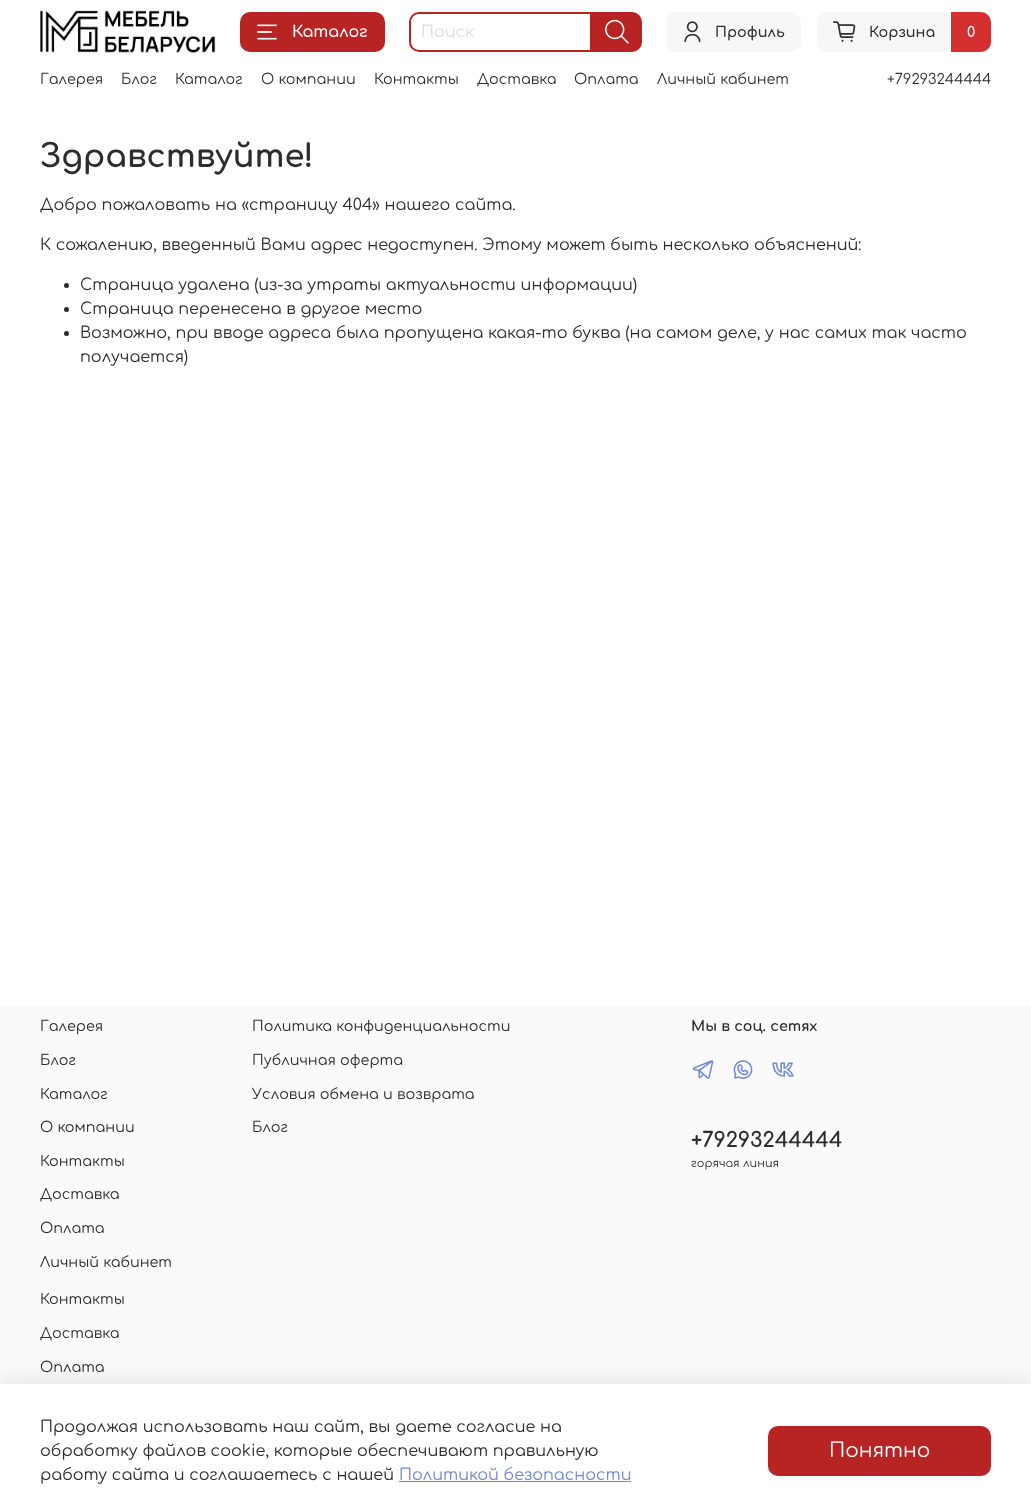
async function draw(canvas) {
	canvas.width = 1031;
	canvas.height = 1508;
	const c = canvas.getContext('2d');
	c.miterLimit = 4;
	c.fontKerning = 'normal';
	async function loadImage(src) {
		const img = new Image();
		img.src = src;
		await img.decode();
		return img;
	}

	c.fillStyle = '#fff';
	c.fillRect(0, 0, 1031, 1508);
	c.drawImage(await loadImage('img1.png'), 40, 10, 176, 43);
	c.fillStyle = '#b82323';
	c.beginPath();
	c.roundRect(240, 12, 145, 40, 10);
	c.fill();
	c.drawImage(await loadImage('img2.png'), 257, 24, 20, 16);
	c.font = '600 16px Comfortaa';
	c.fillStyle = '#fff';
	c.fillText('Каталог', 292, 37);
	c.beginPath();
	c.roundRect(410, 13, 181, 38, [9, 0, 0, 9]);
	c.strokeStyle = '#b82323';
	c.lineWidth = 2;
	c.stroke();
	c.font = '16px Comfortaa';
	c.fillStyle = '#ddd';
	c.fillText('Поиск', 421, 37);
	c.fillStyle = '#b82323';
	c.beginPath();
	c.roundRect(592, 12, 50, 40, [0, 10, 10, 0]);
	c.fill();
	c.drawImage(await loadImage('img3.png'), 605, 19, 24, 25);
	c.fillStyle = '#f7f7f7';
	c.beginPath();
	c.roundRect(666, 12, 135, 40, 10);
	c.fill();
	c.drawImage(await loadImage('img4.png'), 684, 21, 17, 22);
	c.font = '600 14.4px Comfortaa';
	c.fillStyle = '#2d2d2d';
	c.fillText('Профиль', 715, 37);
	c.fillStyle = '#f7f7f7';
	c.beginPath();
	c.roundRect(817, 12, 174, 40, 10);
	c.fill();
	c.drawImage(await loadImage('img5.png'), 833, 21, 23, 21);
	c.fillStyle = '#2d2d2d';
	c.fillText('Корзина', 869, 37);
	c.fillStyle = '#d62f2f';
	c.beginPath();
	c.roundRect(951, 12, 40, 40, [0, 10, 10, 0]);
	c.fill();
	c.fillStyle = '#fff';
	c.fillText('0', 967, 37);
	c.font = '14.4px Comfortaa';
	c.fillStyle = '#2d2d2d';
	for (const [text, x, y] of [
		['Галерея', 40, 84],
		['Блог', 121, 84],
		['Каталог', 175, 84],
		['О компании', 261, 84],
		['Контакты', 374, 84],
		['Доставка', 477, 84],
		['Оплата', 574, 84],
		['Личный кабинет', 657, 84],
		['+79293244444', 887, 84],
	]) {
		c.fillText(text, x, y);
	}
	c.font = 'bold 32px Comfortaa';
	c.fillText('Здравствуйте!', 40, 167);
	c.font = '16px Comfortaa';
	c.fillText('Добро пожаловать на «страницу 404» нашего сайта.', 40, 210);
	c.fillText('К сожалению, введенный Вами адрес недоступен. Этому может быть несколько объяснений:', 40, 250);
	c.beginPath();
	c.arc(66.5, 285.5, 2.5, 0, 2 * Math.PI);
	c.fill();
	c.fillText('Страница удалена (из-за утраты актуальности информации)', 80, 290);
	c.beginPath();
	c.arc(66.5, 309.5, 2.5, 0, 2 * Math.PI);
	c.fill();
	c.fillText('Страница перенесена в другое место', 80, 314);
	c.beginPath();
	c.arc(66.5, 333.5, 2.5, 0, 2 * Math.PI);
	c.fill();
	c.fillText('Возможно, при вводе адреса была пропущена какая-то буква (на самом деле, у нас самих так часто', 80, 338);
	c.fillText('получается)', 80, 362);
	c.fillStyle = '#fafafa';
	c.fillRect(0, 1006, 1031, 378);
	c.font = '14.4px Comfortaa';
	c.fillStyle = '#2d2d2d';
	for (const [text, x, y] of [
		['Галерея', 40, 1031],
		['Блог', 40, 1065],
		['Каталог', 40, 1099],
		['О компании', 40, 1132],
		['Контакты', 40, 1166],
		['Доставка', 40, 1199],
		['Оплата', 40, 1233],
		['Личный кабинет', 40, 1267],
		['Политика конфиденциальности', 252, 1031],
		['Публичная оферта', 252, 1065],
		['Условия обмена и возврата', 252, 1099],
		['Блог', 252, 1132],
		['Контакты', 40, 1304],
		['Доставка', 40, 1338],
		['Оплата', 40, 1372],
	]) {
		c.fillText(text, x, y);
	}
	c.font = 'bold 14.4px Comfortaa';
	c.fillText('Мы в соц. сетях', 691, 1031);
	c.drawImage(await loadImage('img6.png'), 692, 1060, 22, 19);
	c.drawImage(await loadImage('img7.png'), 733, 1060, 20, 19);
	c.drawImage(await loadImage('img8.png'), 772, 1062, 22, 15);
	c.font = 'bold 20.75px Comfortaa';
	c.fillText('+79293244444', 691, 1147);
	c.font = '11.25px Comfortaa';
	c.fillText('горячая линия', 691, 1167);
	c.fillStyle = '#00000017';
	c.filter = 'blur(11.5px)';
	c.beginPath();
	c.rect(-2, 1381, 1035, 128);
	c.fill();
	c.filter = 'none';
	c.fillStyle = '#fff';
	c.fillRect(0, 1384, 1031, 124);
	c.font = '16px Comfortaa';
	c.fillStyle = '#2d2d2d';
	for (const [text, x, y] of [
		['Продолжая использовать наш сайт, вы даете согласие на', 40, 1432],
		['обработку файлов cookie, которые обеспечивают правильную', 40, 1456],
		['работу сайта и соглашаетесь с нашей', 40, 1480],
	]) {
		c.fillText(text, x, y);
	}
	c.fillStyle = '#7188d4';
	c.fillText('Политикой безопасности', 399, 1480);
	c.fillRect(399, 1481, 232, 1);
	c.fillStyle = '#b82323';
	c.beginPath();
	c.roundRect(768, 1426, 223, 50, 10);
	c.fill();
	c.font = '20px Comfortaa';
	c.fillStyle = '#fff';
	c.fillText('Понятно', 829, 1457);
}

draw(document.querySelector('canvas'));
